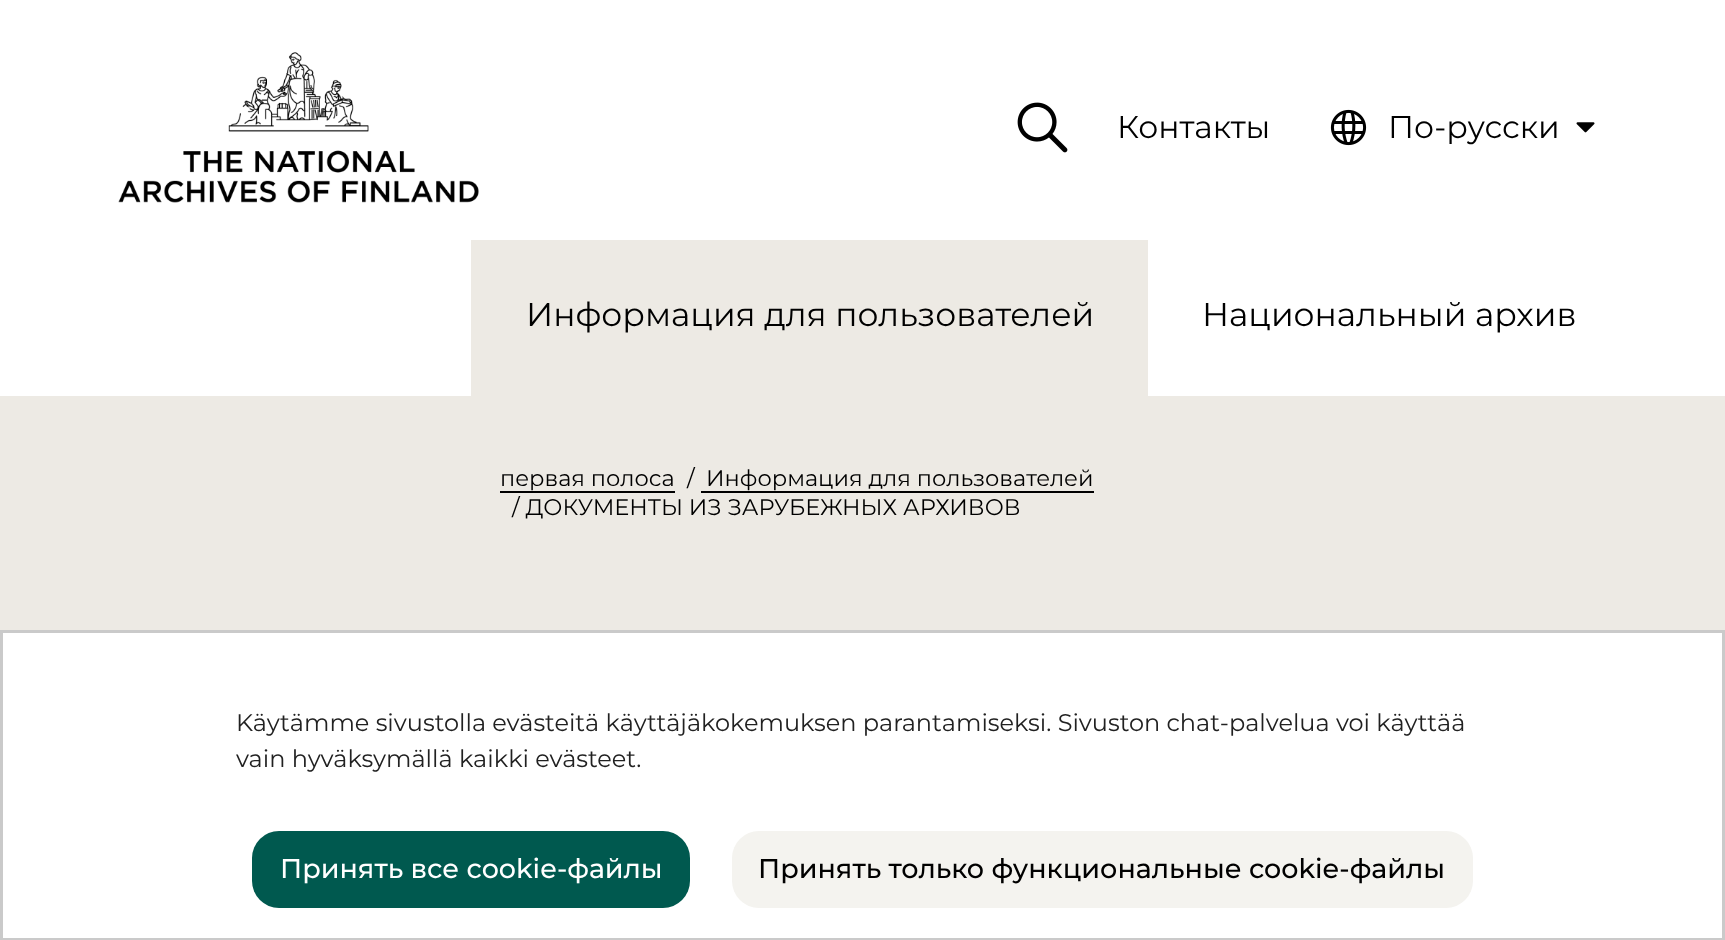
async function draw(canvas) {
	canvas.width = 1725;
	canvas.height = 940;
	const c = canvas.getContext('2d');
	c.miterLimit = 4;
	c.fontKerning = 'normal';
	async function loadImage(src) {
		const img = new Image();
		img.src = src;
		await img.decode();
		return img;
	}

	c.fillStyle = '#fff';
	c.fillRect(0, 0, 1725, 940);
	c.drawImage(await loadImage('img1.png'), 118, 52, 361, 151);
	c.drawImage(await loadImage('img2.png'), 1017, 102, 51, 51);
	c.font = '31.5px Montserrat';
	c.fillStyle = '#000';
	c.fillText('Контакты', 1117, 138);
	c.drawImage(await loadImage('img3.png'), 1330, 109, 37, 37);
	c.fillText('По-русски', 1388, 138);
	c.drawImage(await loadImage('img4.png'), 1576, 122, 19, 11);
	c.fillStyle = '#edeae4';
	c.fillRect(471, 240, 677, 156);
	c.font = '33px Montserrat';
	c.fillStyle = '#000';
	c.fillText('Информация для пользователей', 526, 326);
	c.fillText('Национальный архив', 1202, 326);
	c.fillStyle = '#edeae4';
	c.fillRect(0, 396, 1725, 234);
	c.font = '22.5px Montserrat';
	c.fillStyle = '#000';
	c.fillText('первая полоса', 500, 486);
	c.fillRect(500, 491, 175, 2);
	c.fillText('/', 687, 486);
	c.fillText('Информация для пользователей', 706, 486);
	c.fillRect(701, 491, 393, 2);
	c.fillText('/ ДОКУМЕНТЫ ИЗ ЗАРУБЕЖНЫХ АРХИВОВ', 512, 515);
	c.strokeStyle = '#cacaca';
	c.lineWidth = 3;
	c.strokeRect(1.5, 631.5, 1722, 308);
	c.font = '24px Montserrat';
	c.fillStyle = '#212121';
	c.fillText('Käytämme sivustolla evästeitä käyttäjäkokemuksen parantamiseksi. Sivuston chat-palvelua voi käyttää', 236, 731);
	c.fillText('vain hyväksymällä kaikki evästeet.', 236, 767);
	c.fillStyle = '#00594f';
	c.beginPath();
	c.roundRect(252, 831, 438, 77, 27);
	c.fill();
	c.font = '500 27px Montserrat';
	c.fillStyle = '#fff';
	c.fillText('Принять все cookie-файлы', 280, 878);
	c.fillStyle = '#f4f3ef';
	c.beginPath();
	c.roundRect(732, 831, 741, 77, 27);
	c.fill();
	c.fillStyle = '#000';
	c.fillText('Принять только функциональные cookie-файлы', 758, 878);
}

draw(document.querySelector('canvas'));
